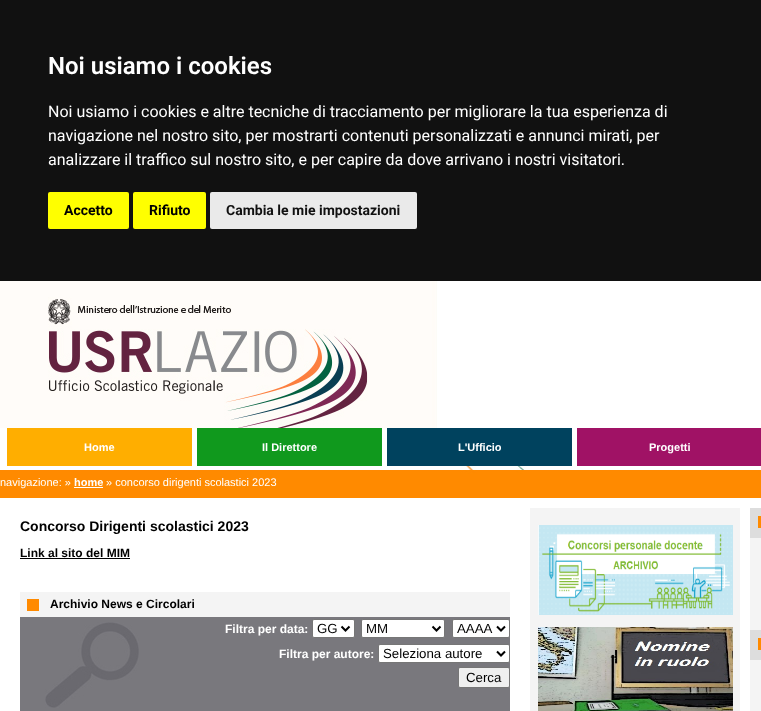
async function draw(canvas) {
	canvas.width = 761;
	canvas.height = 711;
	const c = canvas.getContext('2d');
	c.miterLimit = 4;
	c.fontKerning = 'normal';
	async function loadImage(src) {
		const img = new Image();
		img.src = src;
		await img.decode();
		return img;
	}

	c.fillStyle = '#fff';
	c.fillRect(0, 0, 761, 711);
	c.fillStyle = '#111';
	c.fillRect(0, 0, 761, 281);
	c.font = '600 24px Roboto';
	c.fillStyle = '#fff';
	c.fillText('Noi usiamo i cookies', 48, 74);
	c.font = '16px Roboto';
	for (const [text, x, y] of [
		['Noi usiamo i cookies e altre tecniche di tracciamento per migliorare la tua esperienza di', 48, 117],
		['navigazione nel nostro sito, per mostrarti contenuti personalizzati e annunci mirati, per', 48, 141],
		['analizzare il traffico sul nostro sito, e per capire da dove arrivano i nostri visitatori.', 48, 165],
	]) {
		c.fillText(text, x, y);
	}
	c.fillStyle = '#ff0';
	c.beginPath();
	c.roundRect(48, 192, 81, 37, 2);
	c.fill();
	c.font = 'bold 14px Roboto';
	c.fillStyle = '#000';
	c.fillText('Accetto', 64, 215);
	c.fillStyle = '#ff0';
	c.beginPath();
	c.roundRect(133, 192, 73, 37, 2);
	c.fill();
	c.fillStyle = '#000';
	c.fillText('Rifiuto', 149, 215);
	c.fillStyle = '#eaeaea';
	c.beginPath();
	c.roundRect(210, 192, 207, 37, 2);
	c.fill();
	c.fillStyle = '#111';
	c.fillText('Cambia le mie impostazioni', 226, 215);
	c.drawImage(await loadImage('img1.png'), 0, 281, 437, 147);
	c.fillStyle = '#ffae00';
	c.fillRect(7, 428, 185, 38);
	c.font = 'bold 11px Liberation Sans';
	c.fillStyle = '#fff';
	c.fillText('Home', 84, 451);
	c.fillStyle = '#10991d';
	c.fillRect(197, 428, 185, 38);
	c.fillStyle = '#fff';
	c.fillText('Il Direttore', 262, 451);
	c.fillStyle = '#00425e';
	c.fillRect(387, 428, 185, 38);
	c.fillStyle = '#fff';
	c.fillText('L\'Ufficio', 458, 451);
	c.fillStyle = '#a01265';
	c.fillRect(577, 428, 184, 38);
	c.fillStyle = '#fff';
	c.fillText('Progetti', 649, 451);
	c.drawImage(await loadImage('img2.png'), 0, 466, 761, 32);
	c.font = '11px Liberation Sans';
	c.fillText('navigazione: »', 0, 486);
	c.font = 'bold 11px Liberation Sans';
	c.fillText('home', 74, 486);
	c.fillRect(74, 487, 29, 1);
	c.font = '11px Liberation Sans';
	c.fillText('» concorso dirigenti scolastici 2023', 106, 486);
	c.font = 'bold 14px Liberation Sans';
	c.fillStyle = '#000';
	c.fillText('Concorso Dirigenti scolastici 2023', 20, 531);
	c.font = 'bold 12px Liberation Sans';
	c.fillText('Link al sito del MIM', 20, 557);
	for (const [x, y, w, h, color] of [
		[20, 558, 110, 1, '#000'],
		[20, 592, 490, 25, '#f4f4f4'],
		[27, 599, 12, 12, '#ff8a00'],
	]) {
		c.fillStyle = color;
		c.fillRect(x, y, w, h);
	}
	c.fillStyle = '#000';
	c.fillText('Archivio News e Circolari', 50, 608);
	c.fillStyle = '#79787d';
	c.fillRect(20, 617, 490, 94);
	c.drawImage(await loadImage('img3.png'), 45, 622, 94, 86);
	c.fillStyle = '#fff';
	c.fillText('Filtra per data:', 225, 633);
	c.beginPath();
	c.roundRect(312.5, 619.5, 42, 18, 1.5);
	c.fill();
	c.strokeStyle = '#767676';
	c.stroke();
	c.beginPath();
	c.moveTo(341.5, 626.5);
	c.lineTo(345.5, 630.5);
	c.lineTo(349.5, 626.5);
	c.strokeStyle = '#000';
	c.lineWidth = 2;
	c.stroke();
	c.font = '13.25px Liberation Sans';
	c.fillStyle = '#000';
	c.fillText('GG', 317, 633);
	c.fillStyle = '#fff';
	c.beginPath();
	c.roundRect(361.5, 619.5, 83, 18, 1.5);
	c.fill();
	c.strokeStyle = '#767676';
	c.lineWidth = 1;
	c.stroke();
	c.beginPath();
	c.moveTo(432.5, 626.5);
	c.lineTo(436.5, 630.5);
	c.lineTo(440.5, 626.5);
	c.strokeStyle = '#000';
	c.lineWidth = 2;
	c.stroke();
	c.fillStyle = '#000';
	c.fillText('MM', 366, 633);
	c.fillStyle = '#fff';
	c.beginPath();
	c.roundRect(452.5, 619.5, 57, 18, 1.5);
	c.fill();
	c.strokeStyle = '#767676';
	c.lineWidth = 1;
	c.stroke();
	c.beginPath();
	c.moveTo(497, 626.5);
	c.lineTo(501, 630.5);
	c.lineTo(505, 626.5);
	c.strokeStyle = '#000';
	c.lineWidth = 2;
	c.stroke();
	c.fillStyle = '#000';
	c.fillText('AAAA', 457, 633);
	c.font = 'bold 12px Liberation Sans';
	c.fillStyle = '#fff';
	c.fillText('Filtra per autore:', 279, 658);
	c.beginPath();
	c.roundRect(378.5, 644.5, 131, 18, 1.5);
	c.fill();
	c.strokeStyle = '#767676';
	c.lineWidth = 1;
	c.stroke();
	c.beginPath();
	c.moveTo(497, 651.5);
	c.lineTo(501, 655.5);
	c.lineTo(505, 651.5);
	c.strokeStyle = '#000';
	c.lineWidth = 2;
	c.stroke();
	c.font = '13.25px Liberation Sans';
	c.fillStyle = '#000';
	c.fillText('Seleziona autore', 383, 658);
	c.fillStyle = '#efefef';
	c.beginPath();
	c.roundRect(458.5, 667.5, 51, 20, 1.5);
	c.fill();
	c.strokeStyle = '#767676';
	c.lineWidth = 1;
	c.stroke();
	c.fillStyle = '#000';
	c.fillText('Cerca', 466, 682);
	c.fillStyle = '#f4f4f4';
	c.fillRect(530, 508, 210, 203);
	c.drawImage(await loadImage('img4.png'), 538, 525, 195, 90);
	c.drawImage(await loadImage('img5.png'), 538, 627, 195, 84);
	for (const [x, y, w, h, color] of [
		[750, 538, 11, 173, '#f4f4f4'],
		[750, 508, 11, 30, '#ddd'],
		[758, 516, 3, 12, '#ff8a00'],
		[750, 630, 11, 30, '#ddd'],
		[758, 638, 3, 12, '#ff8a00'],
	]) {
		c.fillStyle = color;
		c.fillRect(x, y, w, h);
	}
}

draw(document.querySelector('canvas'));
